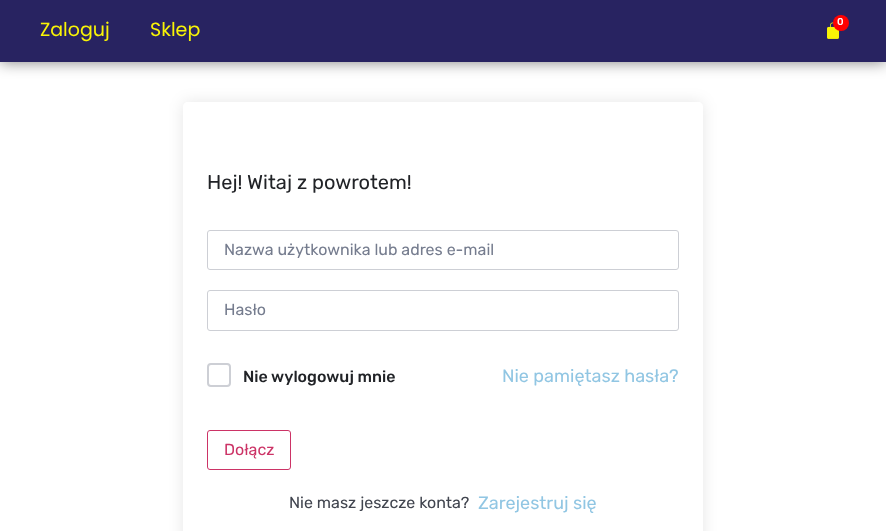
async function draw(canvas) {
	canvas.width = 886;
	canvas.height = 531;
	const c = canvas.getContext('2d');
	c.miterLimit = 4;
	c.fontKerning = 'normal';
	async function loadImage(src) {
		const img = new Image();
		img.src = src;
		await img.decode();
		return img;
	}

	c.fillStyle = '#fff';
	c.fillRect(0, 0, 886, 531);
	c.fillStyle = '#00000080';
	c.filter = 'blur(7.5px)';
	c.beginPath();
	c.rect(0, 0, 886, 62);
	c.fill();
	c.filter = 'none';
	c.fillStyle = '#282361';
	c.fillRect(0, 0, 886, 62);
	c.font = '19px Poppins';
	c.fillStyle = '#f9f406';
	c.fillText('Zaloguj', 40, 36);
	c.fillText('Sklep', 150, 36);
	c.drawImage(await loadImage('img1.png'), 827, 22, 12, 17);
	c.fillStyle = '#f00';
	c.beginPath();
	c.arc(841, 23, 8, 0, 2 * Math.PI);
	c.fill();
	c.font = '500 10px Rubik';
	c.fillStyle = '#fdf8f8';
	c.fillText('0', 837, 25);
	c.save();
	c.beginPath();
	c.moveTo(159, 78);
	c.lineTo(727, 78);
	c.lineTo(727, 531);
	c.lineTo(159, 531);
	c.closePath();
	c.moveTo(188, 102);
	c.lineTo(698, 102);
	c.bezierCurveTo(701, 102, 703, 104, 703, 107);
	c.lineTo(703, 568);
	c.bezierCurveTo(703, 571, 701, 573, 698, 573);
	c.lineTo(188, 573);
	c.bezierCurveTo(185, 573, 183, 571, 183, 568);
	c.lineTo(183, 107);
	c.bezierCurveTo(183, 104, 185, 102, 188, 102);
	c.closePath();
	c.clip('evenodd');
	c.fillStyle = '#0000001a';
	c.filter = 'blur(7.5px)';
	c.beginPath();
	c.roundRect(183, 102, 520, 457, 5);
	c.fill();
	c.filter = 'none';
	c.restore();
	c.font = '20px Rubik';
	c.fillStyle = '#212327';
	c.fillText('Hej! Witaj z powrotem!', 207, 189);
	c.beginPath();
	c.roundRect(207.5, 230.5, 471, 39, 2.5);
	c.strokeStyle = '#cdcfd5';
	c.stroke();
	c.font = '16px Rubik';
	c.fillStyle = '#757c8e';
	c.fillText('Nazwa użytkownika lub adres e-mail', 224, 255);
	c.beginPath();
	c.roundRect(207.5, 290.5, 471, 40, 2.5);
	c.stroke();
	c.fillText('Hasło', 224, 315);
	c.beginPath();
	c.roundRect(208, 364, 22, 22, 3);
	c.lineWidth = 2;
	c.stroke();
	c.font = '500 16px Rubik';
	c.fillStyle = '#212327';
	c.fillText('Nie wylogowuj mnie', 243, 382);
	c.font = '18px Rubik';
	c.fillStyle = '#91c6e3';
	c.fillText('Nie pamiętasz hasła?', 502, 382);
	c.beginPath();
	c.roundRect(207.5, 430.5, 83, 39, 2.5);
	c.strokeStyle = '#c36';
	c.lineWidth = 1;
	c.stroke();
	c.font = '16px Rubik';
	c.fillStyle = '#c36';
	c.fillText('Dołącz', 224, 455);
	c.fillStyle = '#41454f';
	c.fillText('Nie masz jeszcze konta?', 289, 508);
	c.font = '18px Rubik';
	c.fillStyle = '#91c6e3';
	c.fillText('Zarejestruj się', 478, 509);
}

draw(document.querySelector('canvas'));
